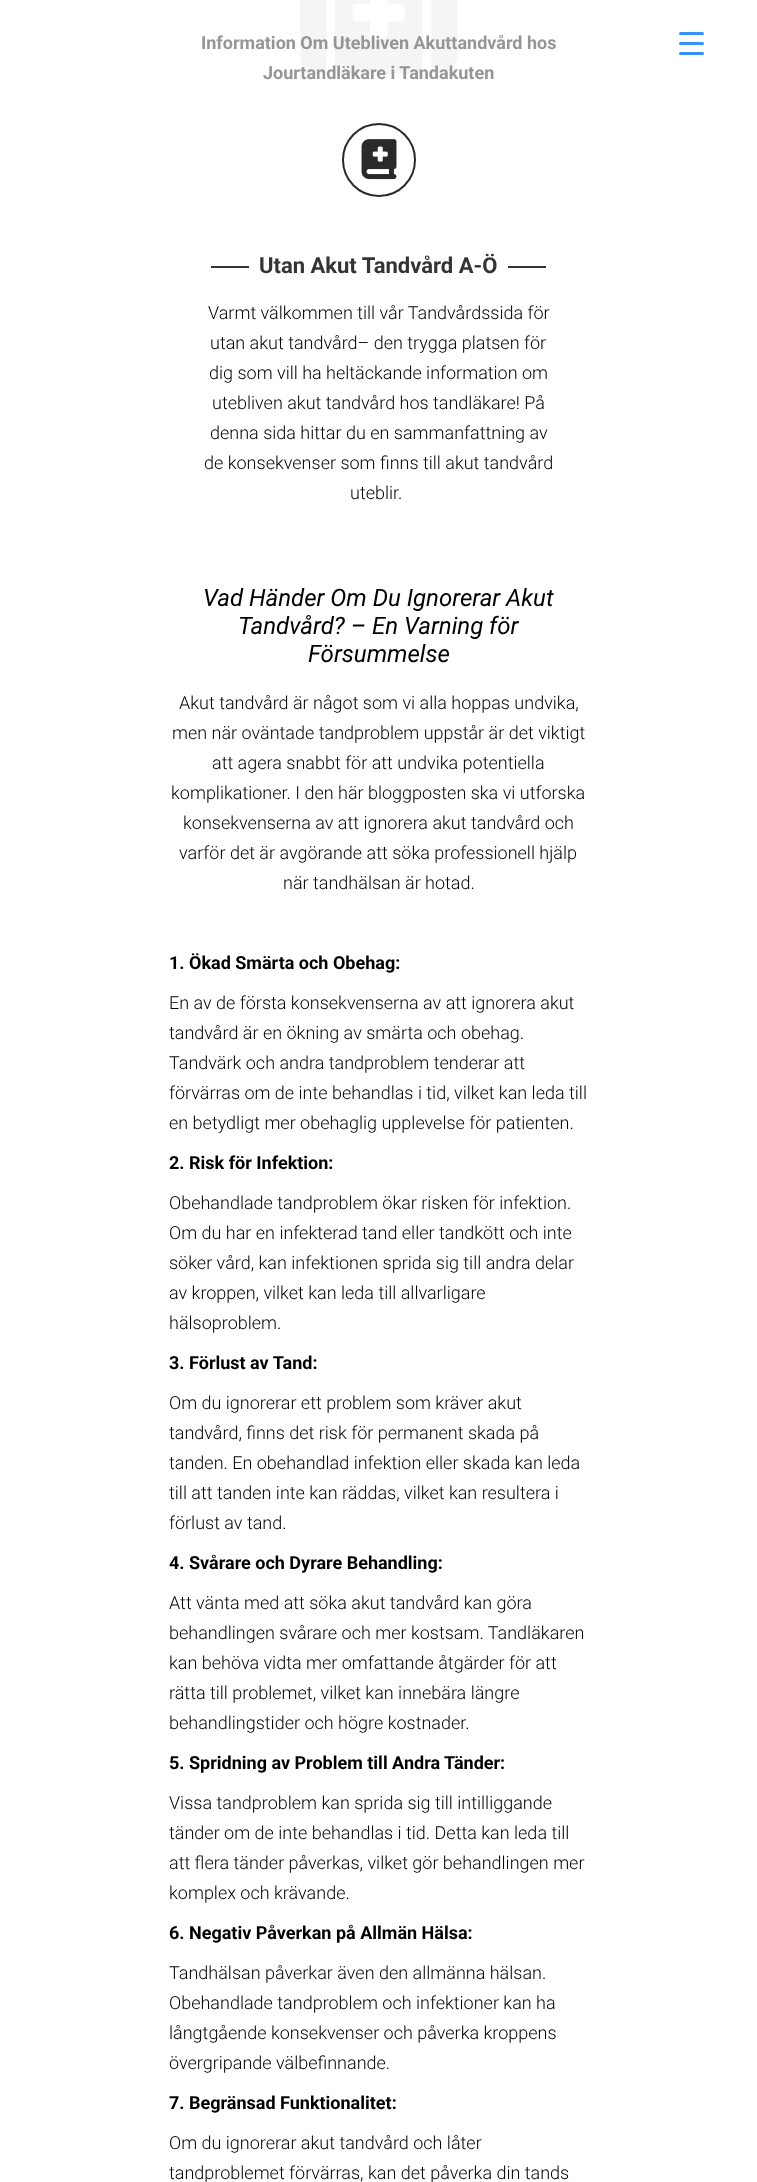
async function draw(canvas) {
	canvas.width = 757;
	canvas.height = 2182;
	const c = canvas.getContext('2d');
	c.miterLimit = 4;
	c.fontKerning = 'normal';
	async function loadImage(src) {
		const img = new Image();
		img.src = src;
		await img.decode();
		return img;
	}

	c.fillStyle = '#fff';
	c.fillRect(0, 0, 757, 2182);
	c.drawImage(await loadImage('img1.png'), 300, 0, 158, 74);
	c.font = 'bold 18px Roboto';
	c.fillStyle = '#959595';
	c.fillText('Information Om Utebliven Akuttandvård hos', 201, 49);
	c.fillText('Jourtandläkare i Tandakuten', 263, 79);
	c.beginPath();
	c.arc(379, 160, 36, 0, 2 * Math.PI);
	c.strokeStyle = '#2a2a2a';
	c.lineWidth = 2;
	c.stroke();
	c.drawImage(await loadImage('img2.png'), 361, 139, 36, 41);
	c.fillStyle = '#343434';
	c.fillRect(211, 266, 38, 2);
	c.font = 'bold 22px Roboto';
	c.fillText('Utan Akut Tandvård A-Ö', 259, 273);
	c.fillRect(508, 266, 38, 2);
	c.font = '300 18px Roboto';
	c.fillStyle = '#000';
	for (const [text, x, y] of [
		['Varmt välkommen till vår Tandvårdssida för', 208, 319],
		['utan akut tandvård– den trygga platsen för', 210, 349],
		['dig som vill ha heltäckande information om', 209, 379],
		['utebliven akut tandvård hos tandläkare! På', 212, 409],
		['denna sida hittar du en sammanfattning av', 210, 439],
		['de konsekvenser som finns till akut tandvård', 204, 469],
		['uteblir.', 350, 499],
	]) {
		c.fillText(text, x, y);
	}
	c.font = 'italic 24px Roboto';
	for (const [text, x, y] of [
		['Vad Händer Om Du Ignorerar Akut', 203, 606],
		['Tandvård? – En Varning för', 238, 634],
		['Försummelse', 308, 662],
	]) {
		c.fillText(text, x, y);
	}
	c.font = '300 18px Roboto';
	for (const [text, x, y] of [
		['Akut tandvård är något som vi alla hoppas undvika,', 179, 709],
		['men när oväntade tandproblem uppstår är det viktigt', 172, 739],
		['att agera snabbt för att undvika potentiella', 212, 769],
		['komplikationer. I den här bloggposten ska vi utforska', 171, 799],
		['konsekvenserna av att ignorera akut tandvård och', 183, 829],
		['varför det är avgörande att söka professionell hjälp', 179, 859],
		['när tandhälsan är hotad.', 283, 889],
	]) {
		c.fillText(text, x, y);
	}
	c.font = 'bold 18px Roboto';
	c.fillText('1. Ökad Smärta och Obehag:', 169, 969);
	c.font = '300 18px Roboto';
	for (const [text, x, y] of [
		['En av de första konsekvenserna av att ignorera akut', 169, 1009],
		['tandvård är en ökning av smärta och obehag.', 169, 1039],
		['Tandvärk och andra tandproblem tenderar att', 169, 1069],
		['förvärras om de inte behandlas i tid, vilket kan leda till', 169, 1099],
		['en betydligt mer obehaglig upplevelse för patienten.', 169, 1129],
	]) {
		c.fillText(text, x, y);
	}
	c.font = 'bold 18px Roboto';
	c.fillText('2. Risk för Infektion:', 169, 1169);
	c.font = '300 18px Roboto';
	for (const [text, x, y] of [
		['Obehandlade tandproblem ökar risken för infektion.', 169, 1209],
		['Om du har en infekterad tand eller tandkött och inte', 169, 1239],
		['söker vård, kan infektionen sprida sig till andra delar', 169, 1269],
		['av kroppen, vilket kan leda till allvarligare', 169, 1299],
		['hälsoproblem.', 169, 1329],
	]) {
		c.fillText(text, x, y);
	}
	c.font = 'bold 18px Roboto';
	c.fillText('3. Förlust av Tand:', 169, 1369);
	c.font = '300 18px Roboto';
	for (const [text, x, y] of [
		['Om du ignorerar ett problem som kräver akut', 169, 1409],
		['tandvård, finns det risk för permanent skada på', 169, 1439],
		['tanden. En obehandlad infektion eller skada kan leda', 169, 1469],
		['till att tanden inte kan räddas, vilket kan resultera i', 169, 1499],
		['förlust av tand.', 169, 1529],
	]) {
		c.fillText(text, x, y);
	}
	c.font = 'bold 18px Roboto';
	c.fillText('4. Svårare och Dyrare Behandling:', 169, 1569);
	c.font = '300 18px Roboto';
	for (const [text, x, y] of [
		['Att vänta med att söka akut tandvård kan göra', 169, 1609],
		['behandlingen svårare och mer kostsam. Tandläkaren', 169, 1639],
		['kan behöva vidta mer omfattande åtgärder för att', 169, 1669],
		['rätta till problemet, vilket kan innebära längre', 169, 1699],
		['behandlingstider och högre kostnader.', 169, 1729],
	]) {
		c.fillText(text, x, y);
	}
	c.font = 'bold 18px Roboto';
	c.fillText('5. Spridning av Problem till Andra Tänder:', 169, 1769);
	c.font = '300 18px Roboto';
	for (const [text, x, y] of [
		['Vissa tandproblem kan sprida sig till intilliggande', 169, 1809],
		['tänder om de inte behandlas i tid. Detta kan leda till', 169, 1839],
		['att flera tänder påverkas, vilket gör behandlingen mer', 169, 1869],
		['komplex och krävande.', 169, 1899],
	]) {
		c.fillText(text, x, y);
	}
	c.font = 'bold 18px Roboto';
	c.fillText('6. Negativ Påverkan på Allmän Hälsa:', 169, 1939);
	c.font = '300 18px Roboto';
	for (const [text, x, y] of [
		['Tandhälsan påverkar även den allmänna hälsan.', 169, 1979],
		['Obehandlade tandproblem och infektioner kan ha', 169, 2009],
		['långtgående konsekvenser och påverka kroppens', 169, 2039],
		['övergripande välbefinnande.', 169, 2069],
	]) {
		c.fillText(text, x, y);
	}
	c.font = 'bold 18px Roboto';
	c.fillText('7. Begränsad Funktionalitet:', 169, 2109);
	c.font = '300 18px Roboto';
	c.fillText('Om du ignorerar akut tandvård och låter', 169, 2149);
	c.fillText('tandproblemet förvärras, kan det påverka din tands', 169, 2179);
	c.fillStyle = '#3692f7';
	c.beginPath();
	c.roundRect(679, 42, 25, 3, 1.5);
	c.fill();
	c.beginPath();
	c.roundRect(679, 32, 25, 3, 1.5);
	c.fill();
	c.beginPath();
	c.roundRect(679, 52, 25, 3, 1.5);
	c.fill();
}

draw(document.querySelector('canvas'));
